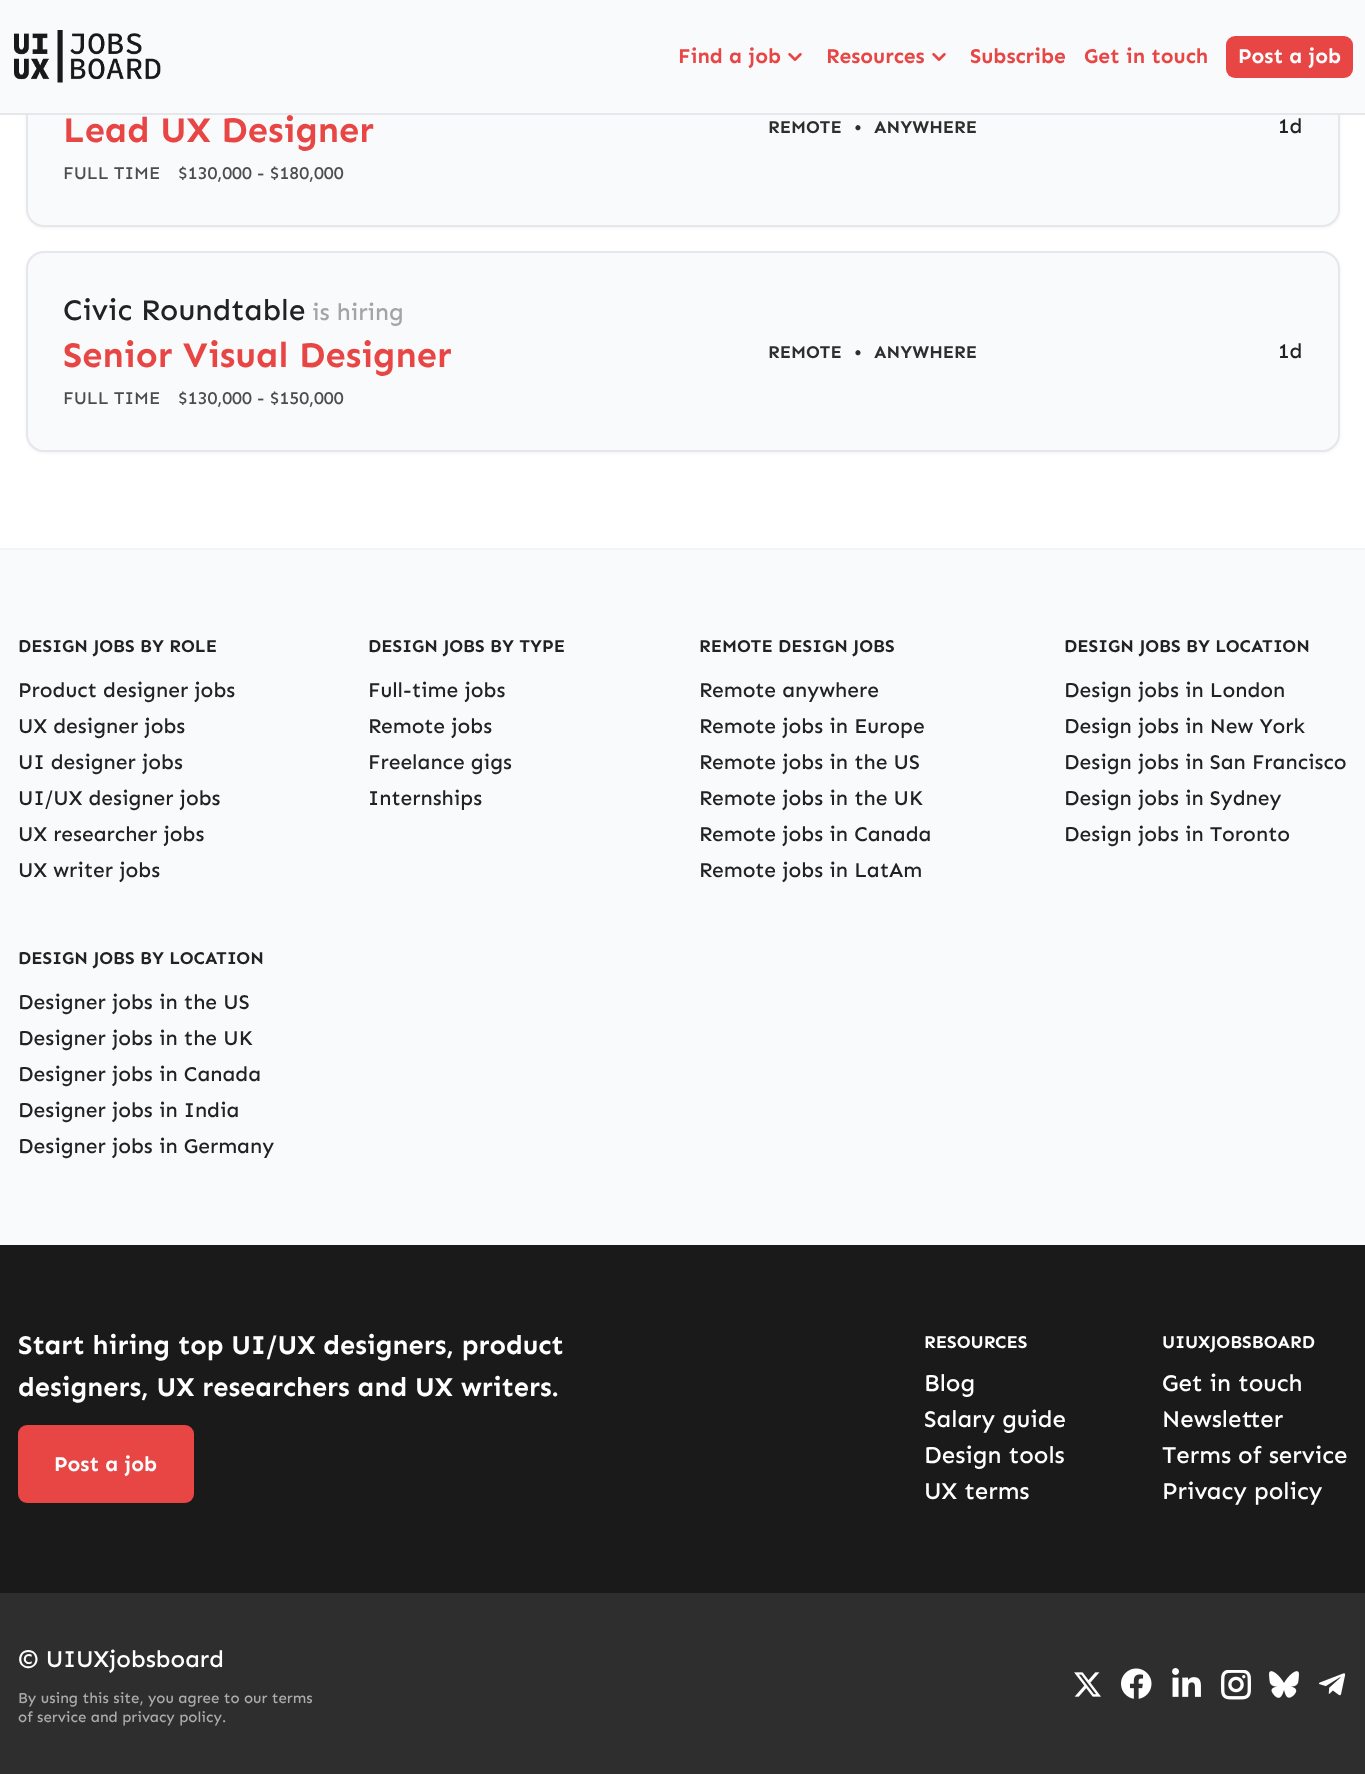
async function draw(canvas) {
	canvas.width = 1365;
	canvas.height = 1774;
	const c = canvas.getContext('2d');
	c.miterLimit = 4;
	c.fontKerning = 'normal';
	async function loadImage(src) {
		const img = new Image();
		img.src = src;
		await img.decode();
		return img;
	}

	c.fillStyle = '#fff';
	c.fillRect(0, 0, 1365, 1774);
	c.fillStyle = '#0000000d';
	c.filter = 'blur(1.5px)';
	c.beginPath();
	c.roundRect(26, 27, 1314, 201, 18);
	c.fill();
	c.filter = 'none';
	c.fillStyle = '#f9fafb';
	c.beginPath();
	c.roundRect(27, 27, 1312, 199, 17);
	c.fill();
	c.strokeStyle = '#e5e7eb';
	c.lineWidth = 2;
	c.stroke();
	c.fillRect(0, 0, 1365, 113);
	c.fillStyle = '#e5e7eb';
	c.fillRect(0, 113, 1365, 2);
	c.drawImage(await loadImage('img1.png'), 14, 30, 147, 53);
	c.font = 'bold 21px Sen';
	c.fillStyle = '#e84545';
	c.fillText('Find a job', 678, 63);
	c.drawImage(await loadImage('img2.png'), 788, 53, 14, 8);
	c.fillText('Resources', 826, 63);
	c.drawImage(await loadImage('img2.png'), 932, 53, 14, 8);
	c.fillText('Subscribe', 970, 63);
	c.fillText('Get in touch', 1084, 63);
	c.beginPath();
	c.roundRect(1226, 36, 127, 42, 9);
	c.fill();
	c.fillStyle = '#fff';
	c.fillText('Post a job', 1238, 63);
	c.font = 'bold 36px Sen';
	c.fillStyle = '#e84545';
	c.fillText('Lead UX Designer', 63, 142);
	c.font = '500 18px Sen';
	c.fillStyle = '#4d4d4d';
	c.fillText('FULL TIME', 63, 179);
	c.fillText('$130,000 - $180,000', 178, 179);
	c.font = 'bold 18px Sen';
	c.fillStyle = '#2e2e2e';
	for (const [text, x, y] of [
		['REMOTE', 768, 133],
		['•', 854, 133],
		['ANYWHERE', 874, 133],
	]) {
		c.fillText(text, x, y);
	}
	c.font = '500 21px Sen';
	c.fillStyle = '#222';
	c.fillText('1d', 1278, 133);
	c.fillStyle = '#0000000d';
	c.filter = 'blur(1.5px)';
	c.beginPath();
	c.roundRect(26, 252, 1314, 201, 18);
	c.fill();
	c.filter = 'none';
	c.fillStyle = '#f9fafb';
	c.beginPath();
	c.roundRect(27, 252, 1312, 199, 17);
	c.fill();
	c.stroke();
	c.font = '500 30px Sen';
	c.fillStyle = '#222';
	c.fillText('Civic Roundtable', 63, 320);
	c.font = '500 24px Sen';
	c.fillStyle = '#a3a4a4';
	c.fillText('is hiring', 312, 320);
	c.font = 'bold 36px Sen';
	c.fillStyle = '#e84545';
	c.fillText('Senior Visual Designer', 63, 367);
	c.font = '500 18px Sen';
	c.fillStyle = '#4d4d4d';
	c.fillText('FULL TIME', 63, 404);
	c.fillText('$130,000 - $150,000', 178, 404);
	c.font = 'bold 18px Sen';
	c.fillStyle = '#2e2e2e';
	for (const [text, x, y] of [
		['REMOTE', 768, 358],
		['•', 854, 358],
		['ANYWHERE', 874, 358],
	]) {
		c.fillText(text, x, y);
	}
	c.font = '500 21px Sen';
	c.fillStyle = '#222';
	c.fillText('1d', 1278, 358);
	for (const [x, y, w, h, color] of [
		[0, 1245, 1365, 348, '#1a1a1a'],
		[0, 550, 1365, 695, '#f9fafb'],
		[0, 548, 1365, 2, '#f3f4f6'],
	]) {
		c.fillStyle = color;
		c.fillRect(x, y, w, h);
	}
	c.font = 'bold 18px Sen';
	c.fillStyle = '#222';
	c.fillText('DESIGN JOBS BY ROLE', 18, 652);
	c.font = '500 21px Sen';
	for (const [text, x, y] of [
		['Product designer jobs', 18, 697],
		['UX designer jobs', 18, 733],
		['UI designer jobs', 18, 769],
		['UI/UX designer jobs', 18, 805],
		['UX researcher jobs', 18, 841],
		['UX writer jobs', 18, 877],
	]) {
		c.fillText(text, x, y);
	}
	c.font = 'bold 18px Sen';
	c.fillText('DESIGN JOBS BY TYPE', 368, 652);
	c.font = '500 21px Sen';
	for (const [text, x, y] of [
		['Full-time jobs', 368, 697],
		['Remote jobs', 368, 733],
		['Freelance gigs', 368, 769],
		['Internships', 368, 805],
	]) {
		c.fillText(text, x, y);
	}
	c.font = 'bold 18px Sen';
	c.fillText('REMOTE DESIGN JOBS', 699, 652);
	c.font = '500 21px Sen';
	for (const [text, x, y] of [
		['Remote anywhere', 699, 697],
		['Remote jobs in Europe', 699, 733],
		['Remote jobs in the US', 699, 769],
		['Remote jobs in the UK', 699, 805],
		['Remote jobs in Canada', 699, 841],
		['Remote jobs in LatAm', 699, 877],
	]) {
		c.fillText(text, x, y);
	}
	c.font = 'bold 18px Sen';
	c.fillText('DESIGN JOBS BY LOCATION', 1064, 652);
	c.font = '500 21px Sen';
	for (const [text, x, y] of [
		['Design jobs in London', 1064, 697],
		['Design jobs in New York', 1064, 733],
		['Design jobs in San Francisco', 1064, 769],
		['Design jobs in Sydney', 1064, 805],
		['Design jobs in Toronto', 1064, 841],
	]) {
		c.fillText(text, x, y);
	}
	c.font = 'bold 18px Sen';
	c.fillText('DESIGN JOBS BY LOCATION', 18, 964);
	c.font = '500 21px Sen';
	for (const [text, x, y] of [
		['Designer jobs in the US', 18, 1009],
		['Designer jobs in the UK', 18, 1045],
		['Designer jobs in Canada', 18, 1081],
		['Designer jobs in India', 18, 1117],
		['Designer jobs in Germany', 18, 1153],
	]) {
		c.fillText(text, x, y);
	}
	c.font = 'bold 27px Sen';
	c.fillStyle = '#fff';
	c.fillText('Start hiring top UI/UX designers, product', 18, 1354);
	c.fillText('designers, UX researchers and UX writers.', 18, 1396);
	c.fillStyle = '#e84545';
	c.beginPath();
	c.roundRect(18, 1425, 176, 78, 9);
	c.fill();
	c.font = 'bold 21px Sen';
	c.fillStyle = '#fff';
	c.fillText('Post a job', 54, 1471);
	c.font = 'bold 18px Sen';
	c.fillText('RESOURCES', 924, 1348);
	c.font = '500 24px Sen';
	for (const [text, x, y] of [
		['Blog', 924, 1391],
		['Salary guide', 924, 1427],
		['Design tools', 924, 1463],
		['UX terms', 924, 1499],
	]) {
		c.fillText(text, x, y);
	}
	c.font = 'bold 18px Sen';
	c.fillText('UIUXJOBSBOARD', 1162, 1348);
	c.font = '500 24px Sen';
	for (const [text, x, y] of [
		['Get in touch', 1162, 1391],
		['Newsletter', 1162, 1427],
		['Terms of service', 1162, 1463],
		['Privacy policy', 1162, 1499],
	]) {
		c.fillText(text, x, y);
	}
	c.fillStyle = '#2e2e2e';
	c.fillRect(0, 1593, 1365, 181);
	c.fillStyle = '#fff';
	c.fillText('© UIUXjobsboard', 18, 1667);
	c.font = '500 15px Sen';
	c.fillStyle = '#ababab';
	c.fillText('By using this site, you agree to our terms', 18, 1703);
	c.fillText('of service and privacy policy.', 18, 1722);
	c.drawImage(await loadImage('img3.png'), 1074, 1672, 27, 25);
	c.drawImage(await loadImage('img4.png'), 1121, 1668, 31, 31);
	c.drawImage(await loadImage('img5.png'), 1172, 1668, 29, 29);
	c.drawImage(await loadImage('img6.png'), 1221, 1670, 30, 30);
	c.drawImage(await loadImage('img7.png'), 1269, 1671, 30, 27);
	c.drawImage(await loadImage('img8.png'), 1318, 1673, 28, 23);
}

draw(document.querySelector('canvas'));
